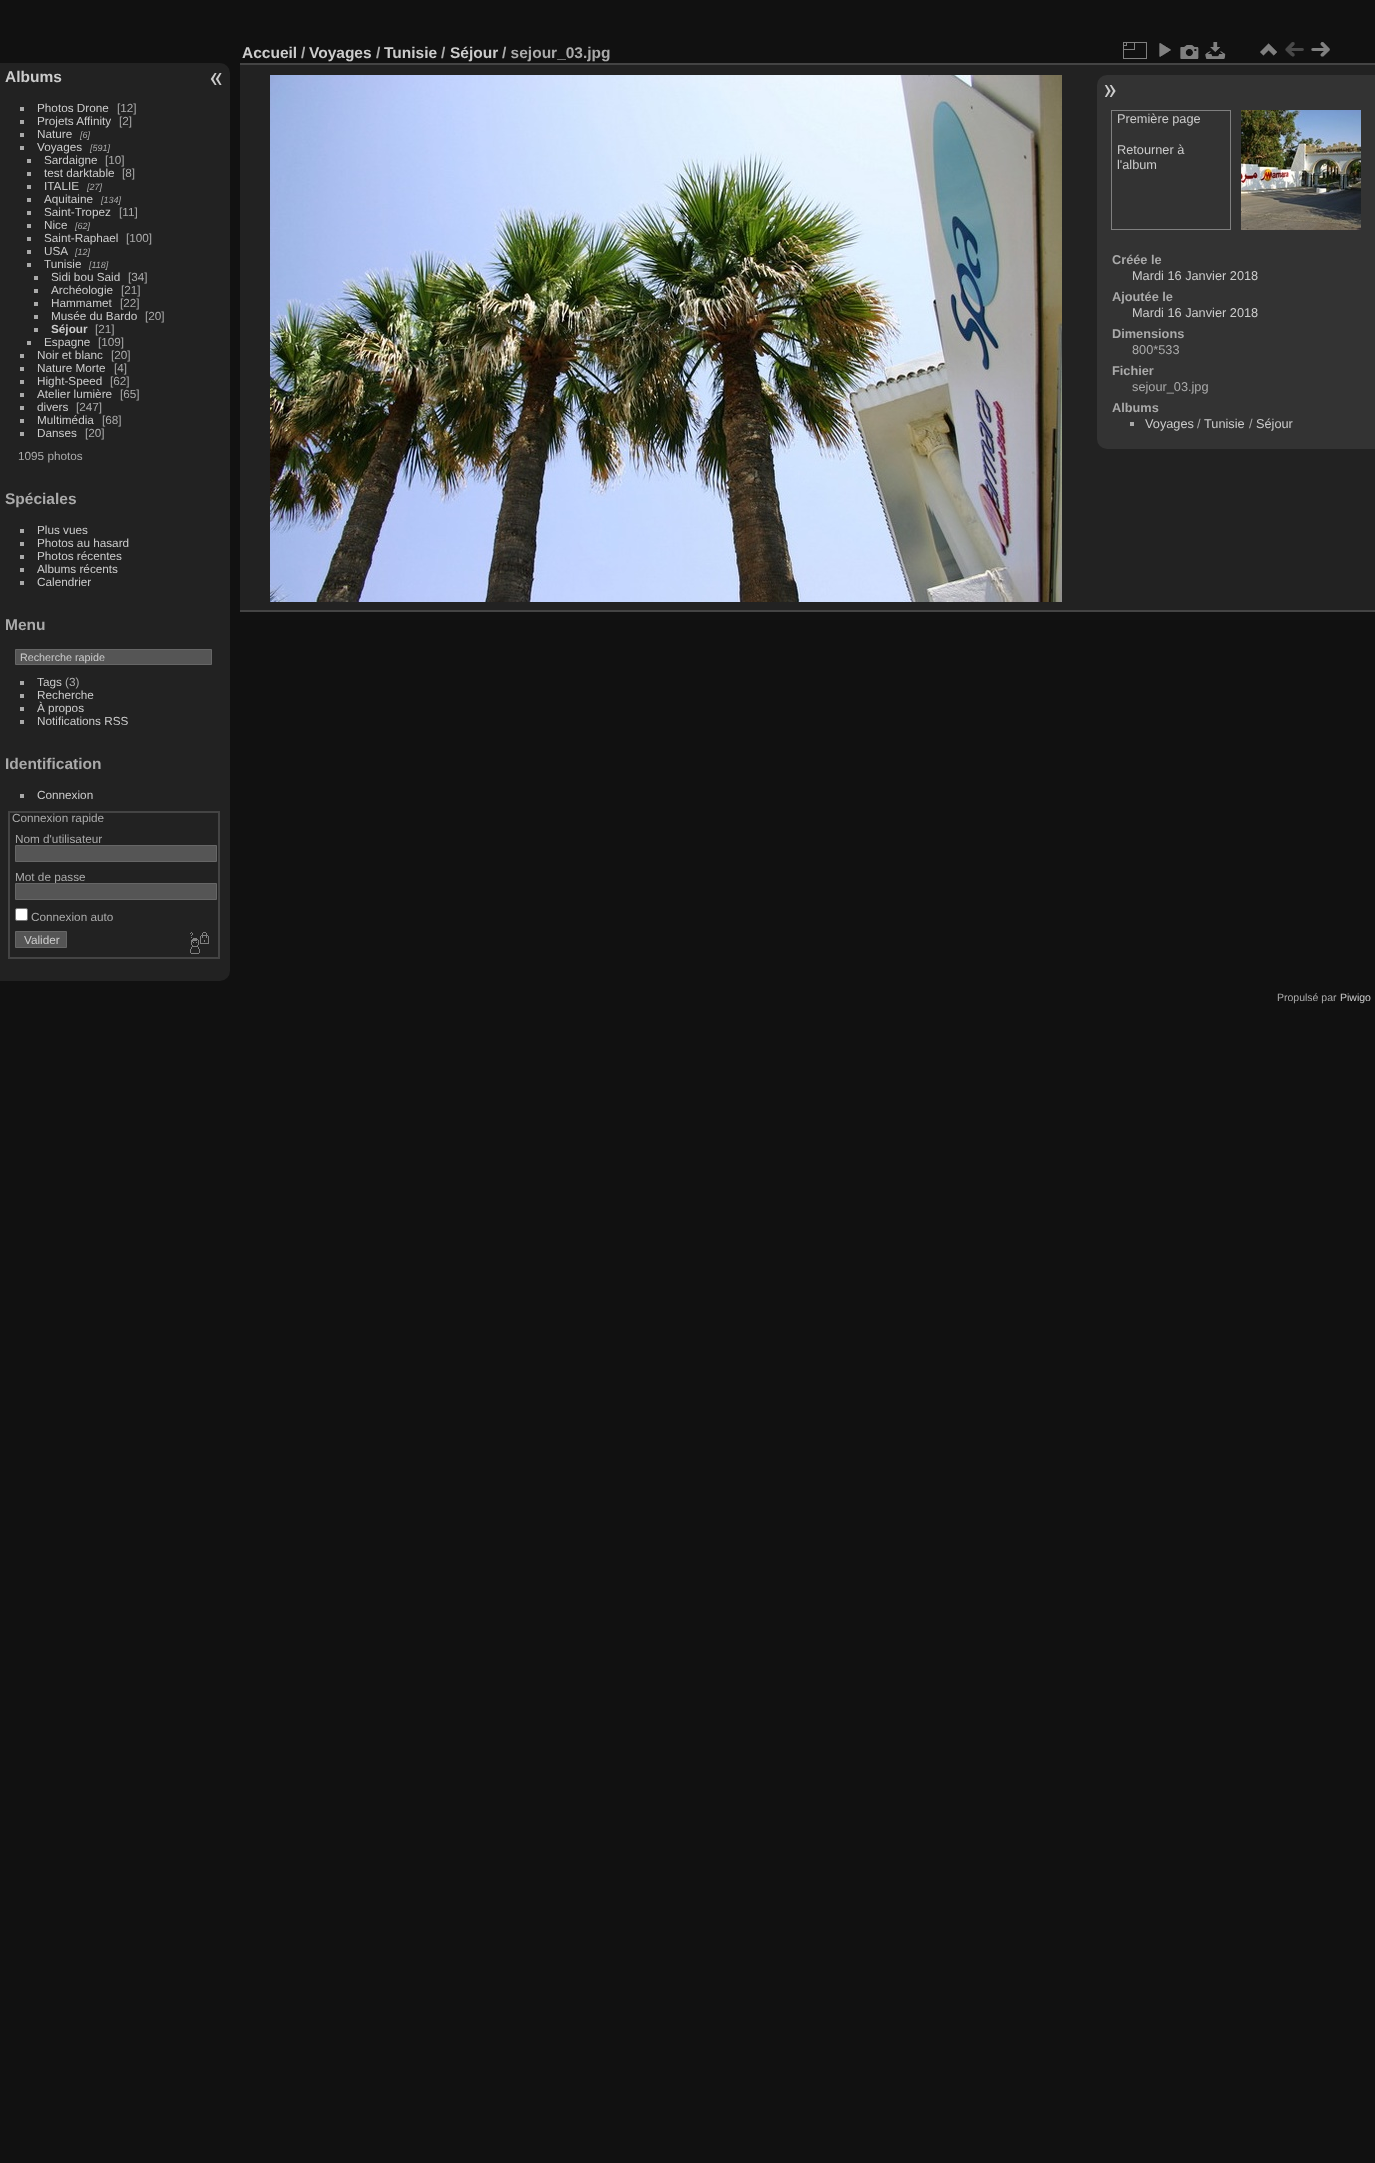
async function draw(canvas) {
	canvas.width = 1375;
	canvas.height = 2163;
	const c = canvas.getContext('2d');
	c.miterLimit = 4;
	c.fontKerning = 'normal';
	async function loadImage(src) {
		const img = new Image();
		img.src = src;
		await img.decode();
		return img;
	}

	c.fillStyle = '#111';
	c.fillRect(0, 0, 1375, 2163);
	c.fillStyle = '#222';
	c.beginPath();
	c.roundRect(0, 63, 230, 918, [0, 10, 10, 0]);
	c.fill();
	c.font = 'bold 15.5px Liberation Sans';
	c.fillStyle = '#ccc';
	c.fillText('Albums', 5, 82);
	c.fillStyle = '#aaa';
	c.fillRect(20, 107, 4, 4);
	c.font = '11.75px Liberation Sans';
	c.fillStyle = '#ccc';
	c.fillText('Photos Drone', 37, 112);
	c.fillStyle = '#aaa';
	c.fillText('[12]', 117, 112);
	c.fillRect(20, 120, 4, 4);
	c.fillStyle = '#ccc';
	c.fillText('Projets Affinity', 37, 125);
	c.fillStyle = '#aaa';
	c.fillText('[2]', 119, 125);
	c.fillRect(20, 133, 4, 4);
	c.fillStyle = '#ccc';
	c.fillText('Nature', 37, 138);
	c.font = 'italic 9px Liberation Sans';
	c.fillStyle = '#aaa';
	c.fillText('[6]', 80, 138);
	c.fillRect(20, 146, 4, 4);
	c.font = '11.75px Liberation Sans';
	c.fillStyle = '#ccc';
	c.fillText('Voyages', 37, 151);
	c.font = 'italic 9px Liberation Sans';
	c.fillStyle = '#aaa';
	c.fillText('[591]', 90, 151);
	c.fillRect(27, 159, 4, 4);
	c.font = '11.75px Liberation Sans';
	c.fillStyle = '#ccc';
	c.fillText('Sardaigne', 44, 164);
	c.fillStyle = '#aaa';
	c.fillText('[10]', 105, 164);
	c.fillRect(27, 172, 4, 4);
	c.fillStyle = '#ccc';
	c.fillText('test darktable', 44, 177);
	c.fillStyle = '#aaa';
	c.fillText('[8]', 122, 177);
	c.fillRect(27, 185, 4, 4);
	c.fillStyle = '#ccc';
	c.fillText('ITALIE', 44, 190);
	c.font = 'italic 9px Liberation Sans';
	c.fillStyle = '#aaa';
	c.fillText('[27]', 87, 190);
	c.fillRect(27, 198, 4, 4);
	c.font = '11.75px Liberation Sans';
	c.fillStyle = '#ccc';
	c.fillText('Aquitaine', 44, 203);
	c.font = 'italic 9px Liberation Sans';
	c.fillStyle = '#aaa';
	c.fillText('[134]', 101, 203);
	c.fillRect(27, 211, 4, 4);
	c.font = '11.75px Liberation Sans';
	c.fillStyle = '#ccc';
	c.fillText('Saint-Tropez', 44, 216);
	c.fillStyle = '#aaa';
	c.fillText('[11]', 119, 216);
	c.fillRect(27, 224, 4, 4);
	c.fillStyle = '#ccc';
	c.fillText('Nice', 44, 229);
	c.font = 'italic 9px Liberation Sans';
	c.fillStyle = '#aaa';
	c.fillText('[62]', 75, 229);
	c.fillRect(27, 237, 4, 4);
	c.font = '11.75px Liberation Sans';
	c.fillStyle = '#ccc';
	c.fillText('Saint-Raphael', 44, 242);
	c.fillStyle = '#aaa';
	c.fillText('[100]', 126, 242);
	c.fillRect(27, 250, 4, 4);
	c.fillStyle = '#ccc';
	c.fillText('USA', 44, 255);
	c.font = 'italic 9px Liberation Sans';
	c.fillStyle = '#aaa';
	c.fillText('[12]', 75, 255);
	c.fillRect(27, 263, 4, 4);
	c.font = '11.75px Liberation Sans';
	c.fillStyle = '#ccc';
	c.fillText('Tunisie', 44, 268);
	c.font = 'italic 9px Liberation Sans';
	c.fillStyle = '#aaa';
	c.fillText('[118]', 89, 268);
	c.fillRect(34, 276, 4, 4);
	c.font = '11.75px Liberation Sans';
	c.fillStyle = '#ccc';
	c.fillText('Sidi bou Said', 51, 281);
	c.fillStyle = '#aaa';
	c.fillText('[34]', 128, 281);
	c.fillRect(34, 289, 4, 4);
	c.fillStyle = '#ccc';
	c.fillText('Archéologie', 51, 294);
	c.fillStyle = '#aaa';
	c.fillText('[21]', 121, 294);
	c.fillRect(34, 302, 4, 4);
	c.fillStyle = '#ccc';
	c.fillText('Hammamet', 51, 307);
	c.fillStyle = '#aaa';
	c.fillText('[22]', 120, 307);
	c.fillRect(34, 315, 4, 4);
	c.fillStyle = '#ccc';
	c.fillText('Musée du Bardo', 51, 320);
	c.fillStyle = '#aaa';
	c.fillText('[20]', 145, 320);
	c.fillRect(34, 328, 4, 4);
	c.font = 'bold 11.75px Liberation Sans';
	c.fillStyle = '#ccc';
	c.fillText('Séjour', 51, 333);
	c.font = '11.75px Liberation Sans';
	c.fillStyle = '#aaa';
	c.fillText('[21]', 95, 333);
	c.fillRect(27, 341, 4, 4);
	c.fillStyle = '#ccc';
	c.fillText('Espagne', 44, 346);
	c.fillStyle = '#aaa';
	c.fillText('[109]', 98, 346);
	c.fillRect(20, 354, 4, 4);
	c.fillStyle = '#ccc';
	c.fillText('Noir et blanc', 37, 359);
	c.fillStyle = '#aaa';
	c.fillText('[20]', 111, 359);
	c.fillRect(20, 367, 4, 4);
	c.fillStyle = '#ccc';
	c.fillText('Nature Morte', 37, 372);
	c.fillStyle = '#aaa';
	c.fillText('[4]', 114, 372);
	c.fillRect(20, 380, 4, 4);
	c.fillStyle = '#ccc';
	c.fillText('Hight-Speed', 37, 385);
	c.fillStyle = '#aaa';
	c.fillText('[62]', 110, 385);
	c.fillRect(20, 393, 4, 4);
	c.fillStyle = '#ccc';
	c.fillText('Atelier lumière', 37, 398);
	c.fillStyle = '#aaa';
	c.fillText('[65]', 120, 398);
	c.fillRect(20, 406, 4, 4);
	c.fillStyle = '#ccc';
	c.fillText('divers', 37, 411);
	c.fillStyle = '#aaa';
	c.fillText('[247]', 76, 411);
	c.fillRect(20, 419, 4, 4);
	c.fillStyle = '#ccc';
	c.fillText('Multimédia', 37, 424);
	c.fillStyle = '#aaa';
	c.fillText('[68]', 102, 424);
	c.fillRect(20, 432, 4, 4);
	c.fillStyle = '#ccc';
	c.fillText('Danses', 37, 437);
	c.fillStyle = '#aaa';
	c.fillText('[20]', 85, 437);
	c.fillText('1095 photos', 18, 460);
	c.font = 'bold 15.5px Liberation Sans';
	c.fillText('Spéciales', 5, 504);
	c.fillRect(20, 529, 4, 4);
	c.font = '11.75px Liberation Sans';
	c.fillStyle = '#ccc';
	c.fillText('Plus vues', 37, 534);
	c.fillStyle = '#aaa';
	c.fillRect(20, 542, 4, 4);
	c.fillStyle = '#ccc';
	c.fillText('Photos au hasard', 37, 547);
	c.fillStyle = '#aaa';
	c.fillRect(20, 555, 4, 4);
	c.fillStyle = '#ccc';
	c.fillText('Photos récentes', 37, 560);
	c.fillStyle = '#aaa';
	c.fillRect(20, 568, 4, 4);
	c.fillStyle = '#ccc';
	c.fillText('Albums récents', 37, 573);
	c.fillStyle = '#aaa';
	c.fillRect(20, 581, 4, 4);
	c.fillStyle = '#ccc';
	c.fillText('Calendrier', 37, 586);
	c.font = 'bold 15.5px Liberation Sans';
	c.fillStyle = '#aaa';
	c.fillText('Menu', 5, 630);
	c.fillStyle = '#555';
	c.beginPath();
	c.rect(15.5, 649.5, 196, 15);
	c.fill();
	c.strokeStyle = '#666';
	c.stroke();
	c.font = '10.75px Liberation Sans';
	c.fillStyle = '#ccc';
	c.fillText('Recherche rapide', 20, 661);
	c.fillStyle = '#aaa';
	c.fillRect(20, 681, 4, 4);
	c.font = '11.75px Liberation Sans';
	c.fillStyle = '#ccc';
	c.fillText('Tags', 37, 686);
	c.fillStyle = '#aaa';
	c.fillText('(3)', 65, 686);
	c.fillRect(20, 694, 4, 4);
	c.fillStyle = '#ccc';
	c.fillText('Recherche', 37, 699);
	c.fillStyle = '#aaa';
	c.fillRect(20, 707, 4, 4);
	c.fillStyle = '#ccc';
	c.fillText('À propos', 37, 712);
	c.fillStyle = '#aaa';
	c.fillRect(20, 720, 4, 4);
	c.fillStyle = '#ccc';
	c.fillText('Notifications RSS', 37, 725);
	c.font = 'bold 15.5px Liberation Sans';
	c.fillStyle = '#aaa';
	c.fillText('Identification', 5, 769);
	c.fillRect(20, 794, 4, 4);
	c.font = '11.75px Liberation Sans';
	c.fillStyle = '#ccc';
	c.fillText('Connexion', 37, 799);
	c.strokeStyle = '#444';
	c.lineWidth = 2;
	c.strokeRect(9, 812, 210, 146);
	c.fillStyle = '#aaa';
	c.fillText('Connexion rapide', 12, 822);
	c.fillText('Nom d\'utilisateur', 15, 843);
	c.fillStyle = '#555';
	c.beginPath();
	c.rect(15.5, 845.5, 201, 16);
	c.fill();
	c.strokeStyle = '#666';
	c.lineWidth = 1;
	c.stroke();
	c.fillStyle = '#aaa';
	c.fillText('Mot de passe', 15, 881);
	c.fillStyle = '#555';
	c.beginPath();
	c.rect(15.5, 883.5, 201, 16);
	c.fill();
	c.stroke();
	c.fillStyle = '#fff';
	c.beginPath();
	c.roundRect(15.5, 908.5, 12, 12, 1.5);
	c.fill();
	c.strokeStyle = '#767676';
	c.stroke();
	c.fillStyle = '#aaa';
	c.fillText('Connexion auto', 31, 921);
	c.fillStyle = '#555';
	c.beginPath();
	c.rect(15.5, 931.5, 51, 16);
	c.fill();
	c.strokeStyle = '#666';
	c.stroke();
	c.fillStyle = '#ccc';
	c.fillText('Valider', 24, 944);
	c.drawImage(await loadImage('img1.png'), 190, 932, 19, 22);
	c.drawImage(await loadImage('img2.png'), 210, 73, 12, 12);
	for (const [x, y, w, h, color] of [
		[240, 65, 1135, 545, '#222'],
		[240, 610, 1135, 2, '#444'],
		[240, 63, 1135, 2, '#444'],
	]) {
		c.fillStyle = color;
		c.fillRect(x, y, w, h);
	}
	c.font = 'bold 15.5px Liberation Sans';
	c.fillStyle = '#ccc';
	c.fillText('Accueil', 242, 58);
	c.fillStyle = '#aaa';
	c.fillText('/', 301, 58);
	c.fillStyle = '#ccc';
	c.fillText('Voyages', 309, 58);
	c.fillStyle = '#aaa';
	c.fillText('/', 376, 58);
	c.fillStyle = '#ccc';
	c.fillText('Tunisie', 384, 58);
	c.fillStyle = '#aaa';
	c.fillText('/', 441, 58);
	c.fillStyle = '#ccc';
	c.fillText('Séjour', 450, 58);
	c.fillStyle = '#aaa';
	c.fillText('/ sejour_03.jpg', 502, 58);
	c.drawImage(await loadImage('img3.png'), 1123, 42, 24, 17);
	c.drawImage(await loadImage('img4.png'), 1159, 43, 12, 14);
	c.drawImage(await loadImage('img5.png'), 1180, 45, 19, 14);
	c.drawImage(await loadImage('img6.png'), 1205, 42, 21, 17);
	c.drawImage(await loadImage('img7.png'), 1260, 43, 17, 13);
	c.drawImage(await loadImage('img8.png'), 1285, 42, 19, 15);
	c.drawImage(await loadImage('img9.png'), 1311, 42, 19, 15);
	c.drawImage(await loadImage('img10.png'), 270, 75, 792, 527);
	c.fillStyle = '#333';
	c.beginPath();
	c.roundRect(1097, 75, 278, 374, [10, 0, 0, 10]);
	c.fill();
	c.drawImage(await loadImage('img11.png'), 1104, 85, 12, 12);
	c.strokeStyle = '#808080';
	c.strokeRect(1111.5, 110.5, 119, 119);
	c.font = '12.75px Liberation Sans';
	c.fillStyle = '#ccc';
	for (const [text, x, y] of [
		['Première page', 1117, 123],
		['Retourner à', 1117, 154],
		['l\'album', 1117, 169],
	]) {
		c.fillText(text, x, y);
	}
	c.drawImage(await loadImage('img12.png'), 1241, 110, 120, 120);
	c.font = 'bold 12.75px Liberation Sans';
	c.fillStyle = '#aaa';
	c.fillText('Créée le', 1112, 264);
	c.font = '12.75px Liberation Sans';
	c.fillStyle = '#ccc';
	c.fillText('Mardi 16 Janvier 2018', 1132, 280);
	c.font = 'bold 12.75px Liberation Sans';
	c.fillStyle = '#aaa';
	c.fillText('Ajoutée le', 1112, 301);
	c.font = '12.75px Liberation Sans';
	c.fillStyle = '#ccc';
	c.fillText('Mardi 16 Janvier 2018', 1132, 317);
	c.font = 'bold 12.75px Liberation Sans';
	c.fillStyle = '#aaa';
	c.fillText('Dimensions', 1112, 338);
	c.font = '12.75px Liberation Sans';
	c.fillText('800*533', 1132, 354);
	c.font = 'bold 12.75px Liberation Sans';
	c.fillText('Fichier', 1112, 375);
	c.font = '12.75px Liberation Sans';
	c.fillText('sejour_03.jpg', 1132, 391);
	c.font = 'bold 12.75px Liberation Sans';
	c.fillText('Albums', 1112, 412);
	c.fillRect(1130, 422, 4, 4);
	c.font = '12.75px Liberation Sans';
	c.fillStyle = '#ccc';
	c.fillText('Voyages', 1145, 428);
	c.fillStyle = '#aaa';
	c.fillText('/', 1197, 428);
	c.fillStyle = '#ccc';
	c.fillText('Tunisie', 1204, 428);
	c.fillStyle = '#aaa';
	c.fillText('/', 1249, 428);
	c.fillStyle = '#ccc';
	c.fillText('Séjour', 1256, 428);
	c.font = '10.5px Liberation Sans';
	c.fillStyle = '#aaa';
	c.fillText('Propulsé par', 1277, 1001);
	c.fillStyle = '#ccc';
	c.fillText('Piwigo', 1340, 1001);
}

draw(document.querySelector('canvas'));
